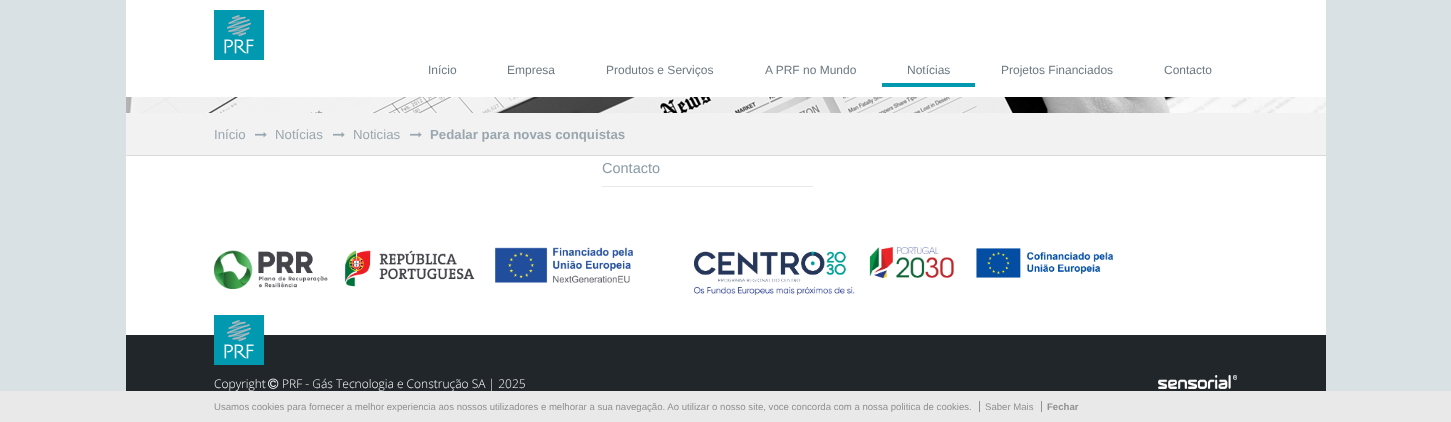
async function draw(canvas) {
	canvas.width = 1451;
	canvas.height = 422;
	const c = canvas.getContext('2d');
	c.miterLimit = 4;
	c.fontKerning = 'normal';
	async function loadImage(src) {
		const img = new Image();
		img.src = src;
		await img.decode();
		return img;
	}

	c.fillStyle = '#d9e1e5';
	c.fillRect(0, 0, 1451, 422);
	c.fillStyle = '#fff';
	c.fillRect(126, 156, 1200, 179);
	c.fillRect(126, 0, 1200, 97);
	c.drawImage(await loadImage('img1.png'), 214, 10, 50, 50);
	c.font = '12px Liberation Sans';
	c.fillStyle = '#6d7a83';
	for (const [text, x, y] of [
		['Início', 428, 74],
		['Empresa', 507, 74],
		['Produtos e Serviços', 606, 74],
		['A PRF no Mundo', 765, 74],
	]) {
		c.fillText(text, x, y);
	}
	c.fillStyle = '#0099af';
	c.fillRect(882, 83, 93, 4);
	c.fillStyle = '#6d7a83';
	for (const [text, x, y] of [
		['Notícias', 907, 74],
		['Projetos Financiados', 1001, 74],
		['Contacto', 1164, 74],
	]) {
		c.fillText(text, x, y);
	}
	c.fillStyle = '#f2f2f2';
	c.fillRect(126, 113, 1200, 42);
	c.drawImage(await loadImage('img2.png'), 126, 97, 1200, 16);
	c.fillStyle = '#dadada';
	c.fillRect(126, 155, 1200, 1);
	c.font = '13.25px Liberation Sans';
	c.fillStyle = '#9aa7af';
	c.fillText('Início', 214, 139);
	c.drawImage(await loadImage('img3.png'), 255, 132, 12, 6);
	c.fillText('Notícias', 275, 139);
	c.drawImage(await loadImage('img3.png'), 333, 132, 12, 6);
	c.fillText('Noticias', 353, 139);
	c.drawImage(await loadImage('img3.png'), 410, 132, 12, 6);
	c.font = 'bold 13.25px Liberation Sans';
	c.fillText('Pedalar para novas conquistas', 430, 139);
	c.fillStyle = '#e6e9ea';
	c.fillRect(602, 186, 211, 1);
	c.font = '14.5px Liberation Sans';
	c.fillStyle = '#8a9ca9';
	c.fillText('Contacto', 602, 173);
	c.drawImage(await loadImage('img4.png'), 214, 247, 419, 42);
	c.drawImage(await loadImage('img5.png'), 694, 247, 419, 48);
	c.fillStyle = '#202629';
	c.fillRect(126, 335, 1200, 56);
	c.drawImage(await loadImage('img1.png'), 214, 315, 50, 50);
	c.font = '300 12px Open Sans';
	c.fillStyle = '#fff';
	c.fillText('Copyright', 214, 388);
	c.drawImage(await loadImage('img6.png'), 268, 378, 11, 11);
	c.fillText('PRF - Gás Tecnologia e Construção SA | 2025', 282, 388);
	c.drawImage(await loadImage('img7.png'), 1158, 375, 79, 14);
	c.fillStyle = '#e9e9e9';
	c.fillRect(0, 391, 1451, 31);
	c.font = '9.6px Liberation Sans';
	c.fillStyle = '#919191';
	c.fillText('Usamos cookies para fornecer a melhor experiencia aos nossos utilizadores e melhorar a sua navegação. Ao utilizar o nosso site, voce concorda com a nossa politica de cookies.', 214, 410);
	c.fillText('Saber Mais', 985, 410);
	c.fillRect(979, 401, 1, 11);
	c.font = 'bold 9.6px Liberation Sans';
	c.fillText('Fechar', 1047, 410);
	c.fillRect(1041, 401, 1, 11);
}

draw(document.querySelector('canvas'));
